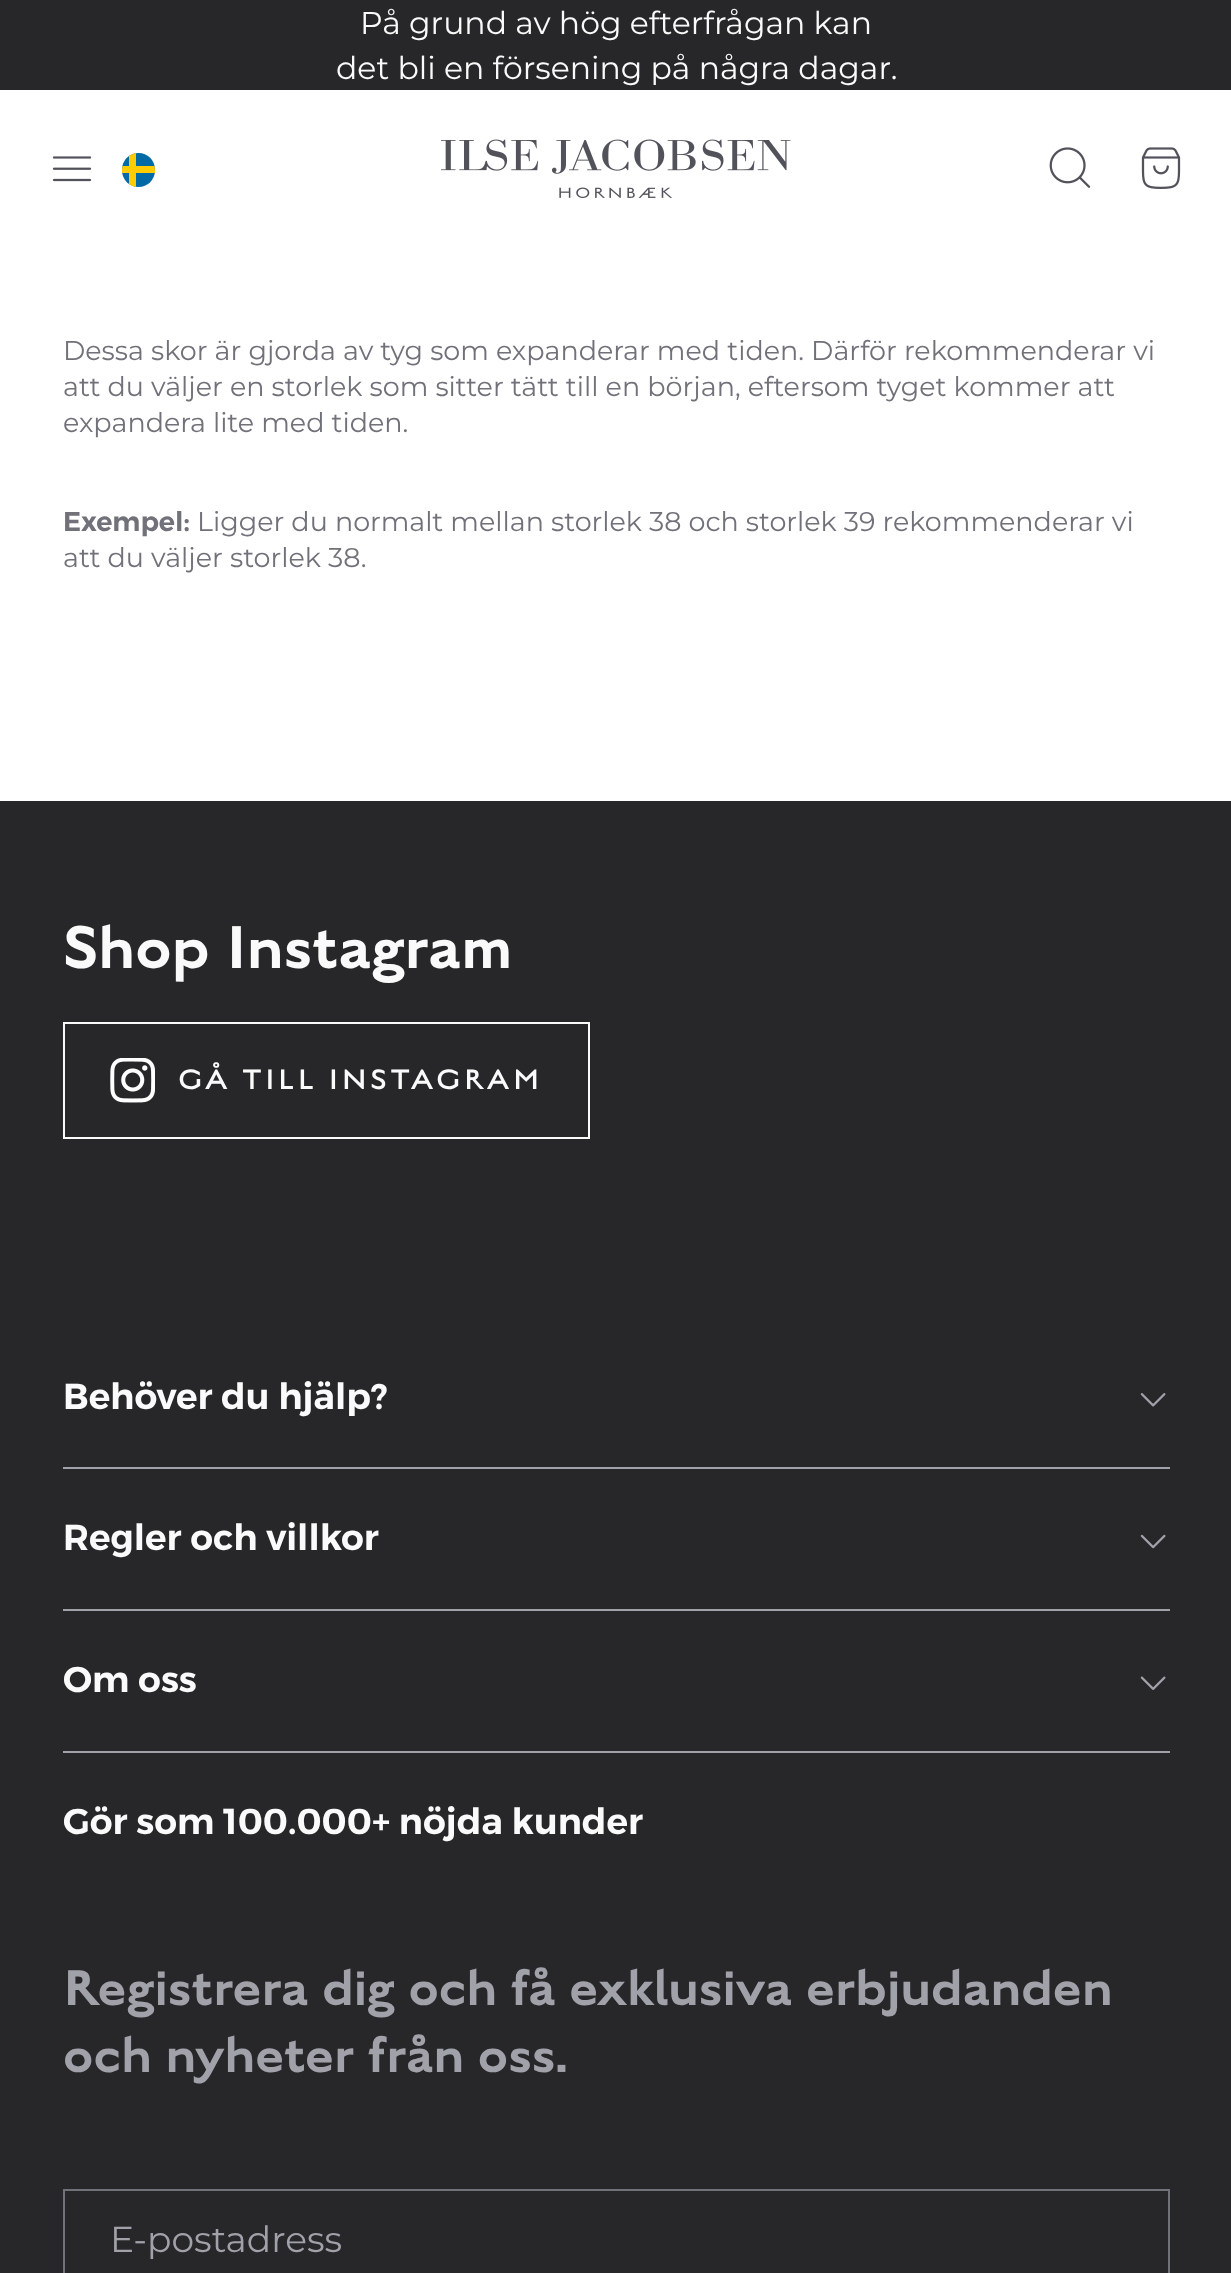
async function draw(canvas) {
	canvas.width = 1231;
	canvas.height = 2273;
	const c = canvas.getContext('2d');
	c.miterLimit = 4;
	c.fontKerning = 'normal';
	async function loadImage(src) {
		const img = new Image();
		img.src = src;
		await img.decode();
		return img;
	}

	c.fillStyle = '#fff';
	c.fillRect(0, 0, 1231, 2273);
	c.fillStyle = '#27272a';
	c.fillRect(0, 0, 1231, 90);
	c.font = '100 31.5px Montserrat';
	c.fillStyle = '#fafafa';
	c.fillText('På grund av hög efterfrågan kan', 360, 34);
	c.fillText('det bli en försening på några dagar.', 336, 79);
	c.drawImage(await loadImage('img1.png'), 52, 156, 40, 26);
	c.fillStyle = '#006aa7';
	c.beginPath();
	c.roundRect(122, 153, 33, 34, 16.5);
	c.fill();
	c.fillStyle = '#fecc00';
	c.beginPath();
	c.moveTo(129, 184);
	c.lineTo(129, 173);
	c.lineTo(122, 173);
	c.bezierCurveTo(122, 170.5, 122, 168.5, 122.5, 166);
	c.lineTo(129, 166);
	c.lineTo(129, 156);
	c.bezierCurveTo(131, 154.5, 133.5, 153.5, 136, 153);
	c.lineTo(136, 166);
	c.lineTo(154.5, 166);
	c.bezierCurveTo(155, 168.5, 155, 170.5, 155, 173);
	c.lineTo(136, 173);
	c.lineTo(136, 187);
	c.bezierCurveTo(133.5, 186.5, 131, 185.5, 129, 184);
	c.closePath();
	c.fill();
	c.drawImage(await loadImage('img2.png'), 441, 139, 350, 59);
	c.drawImage(await loadImage('img3.png'), 1049, 147, 42, 41);
	c.drawImage(await loadImage('img4.png'), 1141, 147, 40, 42);
	c.font = '100 27px Montserrat';
	c.fillStyle = '#71717a';
	for (const [text, x, y] of [
		['Dessa skor är gjorda av tyg som expanderar med tiden. Därför rekommenderar vi', 63, 360],
		['att du väljer en storlek som sitter tätt till en början, eftersom tyget kommer att', 63, 396],
		['expandera lite med tiden.', 63, 432],
	]) {
		c.fillText(text, x, y);
	}
	c.font = '600 27px Montserrat';
	c.fillText('Exempel:', 63, 531);
	c.font = '100 27px Montserrat';
	c.fillText('Ligger du normalt mellan storlek 38 och storlek 39 rekommenderar vi', 197, 531);
	c.fillText('att du väljer storlek 38.', 63, 567);
	c.fillStyle = '#27272a';
	c.fillRect(0, 801, 1231, 1472);
	c.font = '500 67.5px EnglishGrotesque';
	c.fillStyle = '#fafafa';
	c.fillText('Shop Instagram', 63, 968);
	c.strokeStyle = '#fafafa';
	c.lineWidth = 2;
	c.strokeRect(64, 1023, 525, 115);
	c.drawImage(await loadImage('img5.png'), 110, 1058, 45, 45);
	c.letterSpacing = '3.6px';
	c.font = '300 31.5px EnglishGrotesque';
	c.fillText('GÅ TILL INSTAGRAM', 178, 1089);
	c.fillStyle = '#a1a1aa';
	c.fillRect(63, 1467, 1107, 2);
	c.letterSpacing = '0px';
	c.font = '600 36px Montserrat';
	c.fillStyle = '#fafafa';
	c.fillText('Behöver du hjälp?', 63, 1409);
	c.drawImage(await loadImage('img6.png'), 1140, 1393, 26, 14);
	c.fillStyle = '#a1a1aa';
	c.fillRect(63, 1609, 1107, 2);
	c.fillStyle = '#fafafa';
	c.fillText('Regler och villkor', 63, 1550);
	c.drawImage(await loadImage('img7.png'), 1140, 1534, 26, 15);
	c.fillStyle = '#a1a1aa';
	c.fillRect(63, 1751, 1107, 2);
	c.fillStyle = '#fafafa';
	c.fillText('Om oss', 63, 1692);
	c.drawImage(await loadImage('img8.png'), 1140, 1676, 26, 14);
	c.fillText('Gör som 100.000+ nöjda kunder', 63, 1834);
	c.font = '500 56.25px EnglishGrotesque';
	c.fillStyle = '#a1a1aa';
	c.fillText('Registrera dig och få exklusiva erbjudanden', 63, 2005);
	c.fillText('och nyheter från oss.', 63, 2072);
	c.strokeStyle = '#71717a';
	c.strokeRect(64, 2190, 1105, 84);
	c.font = '100 36px Montserrat';
	c.fillText('E-postadress', 110, 2252);
}

draw(document.querySelector('canvas'));
